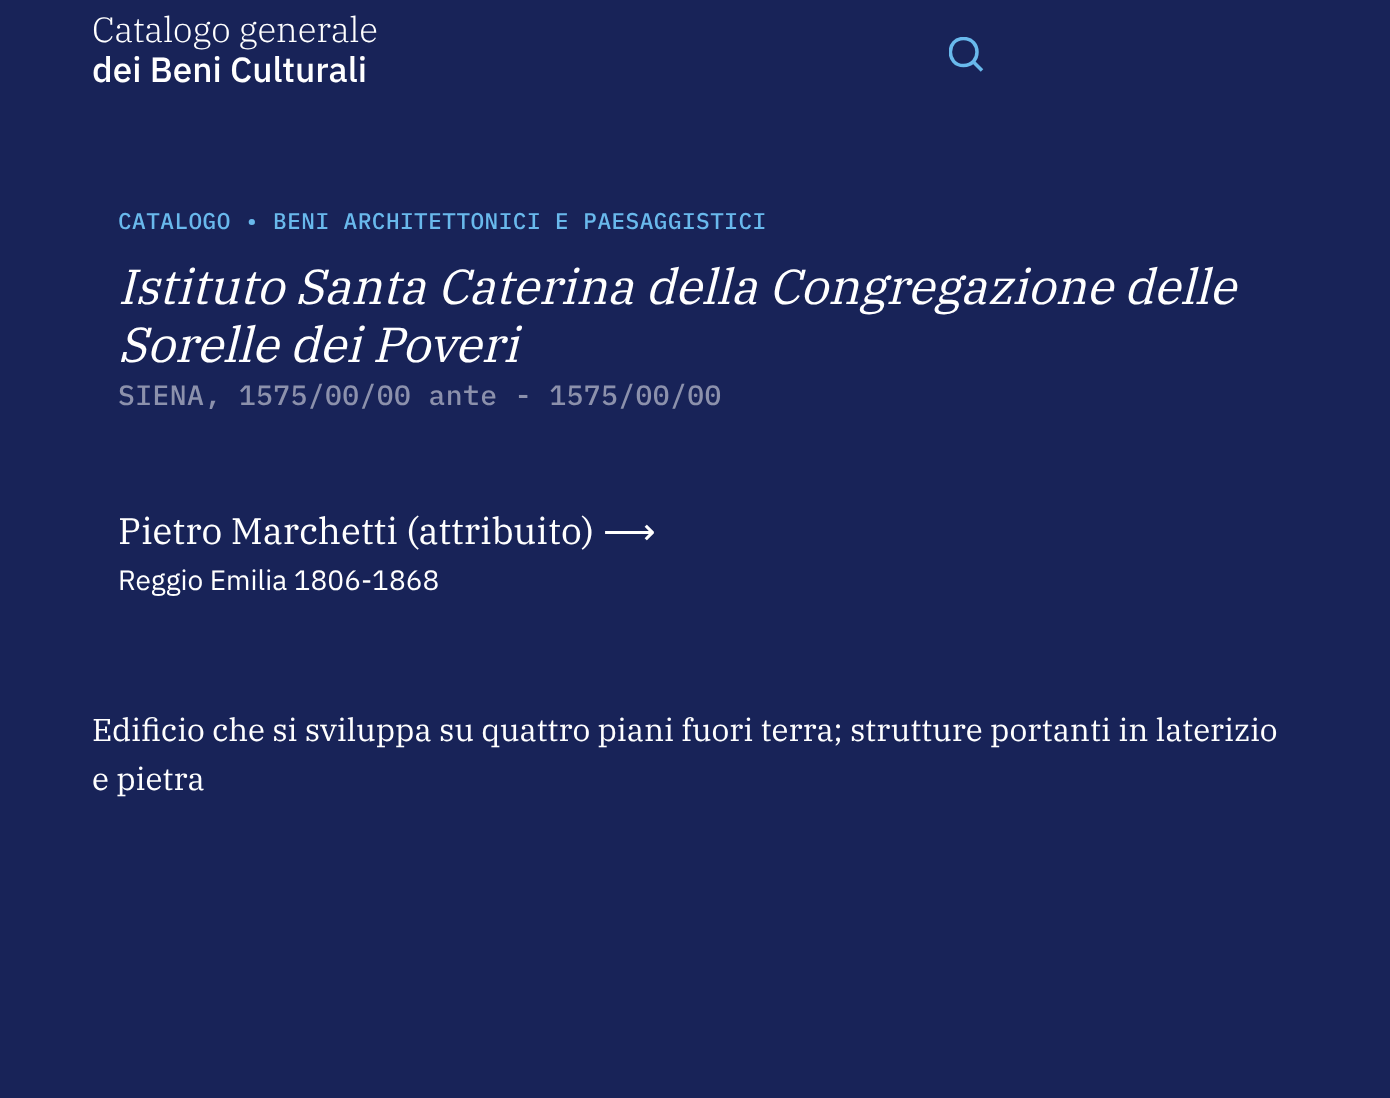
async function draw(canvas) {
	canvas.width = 1390;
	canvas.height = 1098;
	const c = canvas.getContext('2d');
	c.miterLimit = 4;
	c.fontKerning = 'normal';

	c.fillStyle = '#182358';
	c.fillRect(0, 0, 1390, 1098);
	c.font = '300 35px IBM Plex Serif';
	c.fillStyle = '#fff';
	c.fillText('Catalogo generale', 92, 42);
	c.font = '500 35px IBM Plex Sans';
	c.fillText('dei Beni Culturali', 92, 82);
	c.save();
	c.beginPath();
	c.rect(949, 37, 35, 35);
	c.clip();
	c.beginPath();
	c.moveTo(963.5, 65.5);
	c.bezierCurveTo(981.5, 65.5, 981.5, 38.5, 963.5, 38.5);
	c.bezierCurveTo(946, 38.5, 946, 65.5, 963.5, 65.5);
	c.closePath();
	c.strokeStyle = '#69b9ec';
	c.lineWidth = 3.5;
	c.stroke();
	c.restore();
	c.beginPath();
	c.moveTo(973.5, 62);
	c.lineTo(982, 70.5);
	c.strokeStyle = '#69b9ec';
	c.lineWidth = 3.5;
	c.stroke();
	c.letterSpacing = '0.45px';
	c.font = '500 22.75px IBM Plex Mono';
	c.fillStyle = '#69b9ec';
	c.fillText('CATALOGO • BENI ARCHITETTONICI E PAESAGGISTICI', 118, 229);
	c.letterSpacing = '0px';
	c.font = 'italic 49px IBM Plex Serif';
	c.fillStyle = '#fff';
	c.fillText('Istituto Santa Caterina della Congregazione delle', 118, 304);
	c.fillText('Sorelle dei Poveri', 118, 362);
	c.letterSpacing = '0.45px';
	c.font = '500 28px IBM Plex Mono';
	c.fillStyle = '#8c91ac';
	c.fillText('SIENA, 1575/00/00 ante - 1575/00/00', 118, 405);
	c.letterSpacing = '0px';
	c.font = '36.75px IBM Plex Serif';
	c.fillStyle = '#fff';
	c.fillText('Pietro Marchetti (attribuito)', 118, 544);
	c.font = '36.75px DejaVu Sans';
	c.fillText('⟶', 603, 544);
	c.font = '28px IBM Plex Sans';
	c.fillText('Reggio Emilia 1806-1868', 118, 590);
	c.font = '31.5px IBM Plex Serif';
	c.fillText('Edificio che si sviluppa su quattro piani fuori terra; strutture portanti in laterizio', 92, 741);
	c.fillText('e pietra', 92, 790);
}

draw(document.querySelector('canvas'));
